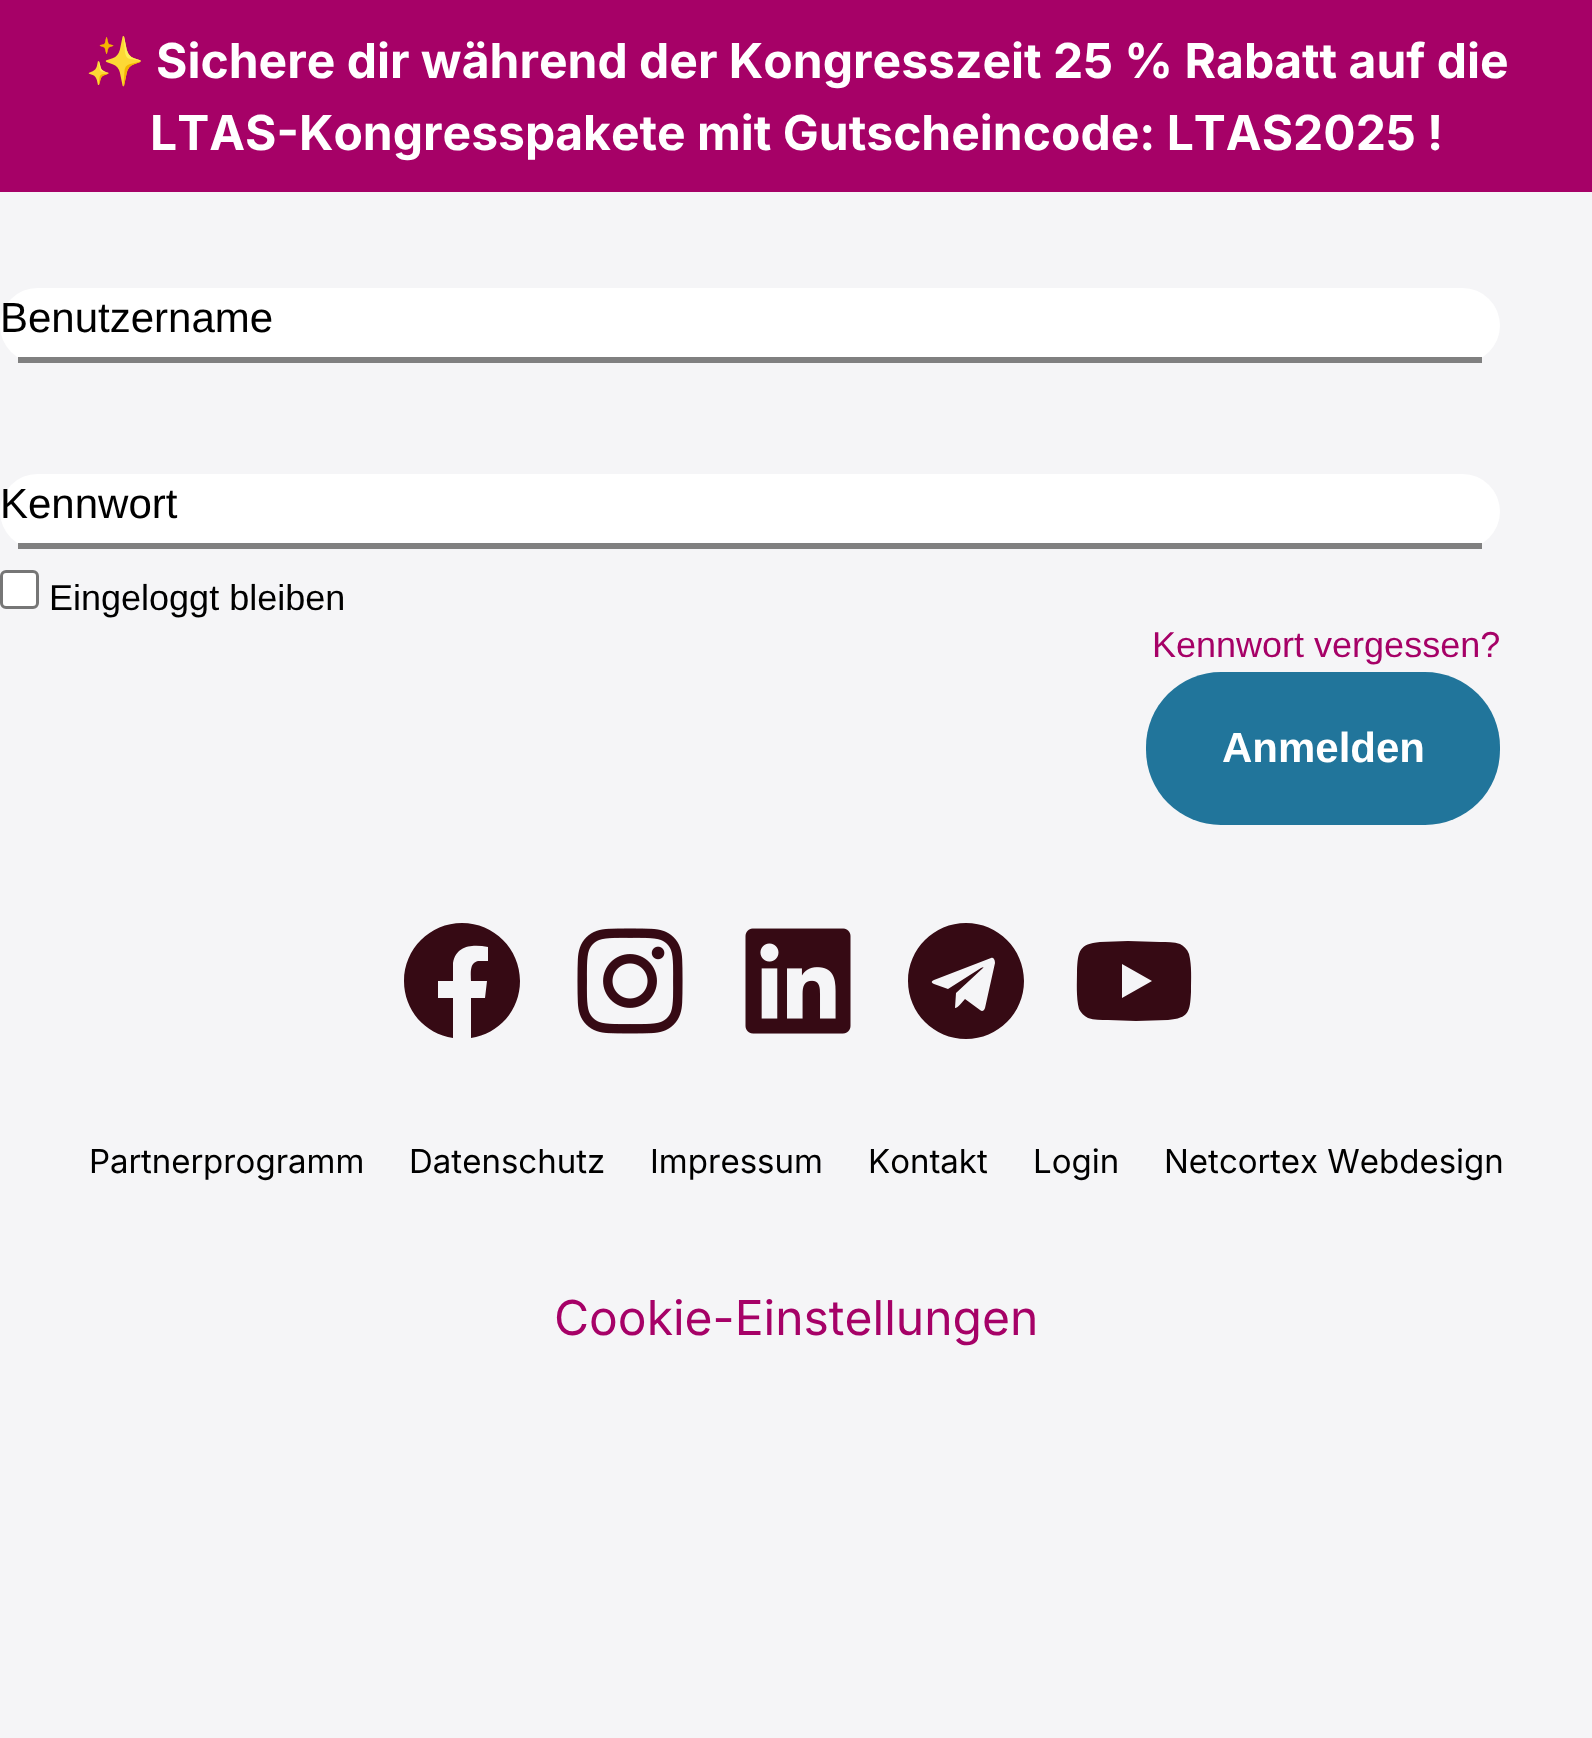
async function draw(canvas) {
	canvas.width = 1592;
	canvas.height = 1738;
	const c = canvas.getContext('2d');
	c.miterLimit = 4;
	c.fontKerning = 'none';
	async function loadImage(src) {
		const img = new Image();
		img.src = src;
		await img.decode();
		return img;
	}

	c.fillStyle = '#f5f5f7';
	c.fillRect(0, 0, 1592, 1738);
	c.fillStyle = '#a60167';
	c.fillRect(0, 0, 1592, 192);
	c.font = 'bold 48px Noto Color Emoji';
	c.fillStyle = '#fff';
	c.fillText('✨', 85, 78);
	c.font = 'bold 48px Inter';
	c.fillText('Sichere dir während der Kongresszeit 25 % Rabatt auf die', 156, 78);
	c.fillText('LTAS-Kongresspakete', 150, 150);
	c.fillText('mit Gutscheincode: LTAS2025', 697, 150);
	c.fillText('!', 1427, 150);
	c.beginPath();
	c.roundRect(0, 288, 1500, 75, 37.5);
	c.fill();
	c.fillStyle = '#808080';
	c.fillRect(18, 357, 1464, 6);
	c.font = '42px Liberation Sans';
	c.fillStyle = '#000';
	c.fillText('Benutzername', 0, 332);
	c.fillStyle = '#fff';
	c.beginPath();
	c.roundRect(0, 474, 1500, 75, 37.5);
	c.fill();
	c.fillStyle = '#808080';
	c.fillRect(18, 543, 1464, 6);
	c.fillStyle = '#000';
	c.fillText('Kennwort', 0, 518);
	c.fillStyle = '#fff';
	c.beginPath();
	c.roundRect(1.5, 571.5, 36, 36, 4.5);
	c.fill();
	c.strokeStyle = '#767676';
	c.lineWidth = 3;
	c.stroke();
	c.font = '36px Liberation Sans';
	c.fillStyle = '#000';
	c.fillText('Eingeloggt bleiben', 49, 610);
	c.fillStyle = '#a60167';
	c.fillText('Kennwort vergessen?', 1152, 657);
	c.fillStyle = '#21759b';
	c.beginPath();
	c.roundRect(1146, 672, 354, 153, 75);
	c.fill();
	c.font = 'bold 42px Liberation Sans';
	c.fillStyle = '#fff';
	c.fillText('Anmelden', 1222, 762);
	c.fillStyle = '#360a14';
	c.beginPath();
	c.moveTo(520, 981);
	c.bezierCurveTo(520, 949, 494, 923, 462, 923);
	c.bezierCurveTo(430, 923, 404, 949, 404, 981);
	c.bezierCurveTo(404, 1010, 425, 1034, 453, 1038);
	c.lineTo(453, 998);
	c.lineTo(438, 998);
	c.lineTo(438, 981);
	c.lineTo(453, 981);
	c.lineTo(453, 963);
	c.bezierCurveTo(456, 945, 473, 944, 488, 947);
	c.lineTo(488, 961);
	c.lineTo(478, 961);
	c.bezierCurveTo(469, 963, 471, 974, 471, 981);
	c.lineTo(487, 981);
	c.lineTo(485, 998);
	c.lineTo(471, 998);
	c.lineTo(471, 1038);
	c.bezierCurveTo(499, 1034, 520, 1010, 520, 981);
	c.closePath();
	c.fill();
	c.drawImage(await loadImage('img1.png'), 577, 928, 106, 106);
	c.drawImage(await loadImage('img2.png'), 745, 928, 106, 106);
	c.beginPath();
	c.moveTo(966, 923);
	c.bezierCurveTo(934, 923, 908, 949, 908, 981);
	c.bezierCurveTo(908, 1013, 934, 1039, 966, 1039);
	c.bezierCurveTo(998, 1039, 1024, 1013, 1024, 981);
	c.bezierCurveTo(1024, 949, 998, 923, 966, 923);
	c.closePath();
	c.moveTo(995, 963);
	c.lineTo(985, 1008);
	c.bezierCurveTo(984, 1011, 982, 1012, 980, 1010);
	c.lineTo(965, 999);
	c.bezierCurveTo(963, 1001, 958, 1008, 955, 1008);
	c.lineTo(956, 993);
	c.lineTo(983, 968);
	c.bezierCurveTo(984, 967, 983, 967, 981, 968);
	c.lineTo(948, 989);
	c.lineTo(934, 984);
	c.bezierCurveTo(931, 983, 931, 981, 934, 980);
	c.lineTo(991, 958);
	c.bezierCurveTo(993, 957, 995, 959, 995, 963);
	c.closePath();
	c.fill();
	c.beginPath();
	c.moveTo(1189, 954);
	c.bezierCurveTo(1187, 949, 1184, 946, 1180, 944);
	c.bezierCurveTo(1174, 942, 1167, 942, 1160, 942);
	c.lineTo(1128, 941);
	c.lineTo(1100, 942);
	c.bezierCurveTo(1079, 944, 1078, 951, 1077, 971);
	c.bezierCurveTo(1077, 983, 1076, 997, 1079, 1009);
	c.bezierCurveTo(1081, 1013, 1084, 1016, 1088, 1018);
	c.bezierCurveTo(1094, 1020, 1101, 1020, 1108, 1020);
	c.lineTo(1136, 1021);
	c.lineTo(1168, 1020);
	c.bezierCurveTo(1189, 1018, 1190, 1012, 1191, 992);
	c.bezierCurveTo(1191, 979, 1192, 966, 1189, 954);
	c.closePath();
	c.moveTo(1122, 998);
	c.lineTo(1122, 964);
	c.lineTo(1152, 981);
	c.closePath();
	c.fill();
	c.font = '33px Inter';
	c.fillStyle = '#000';
	for (const [text, x, y] of [
		['Partnerprogramm', 89, 1173],
		['Datenschutz', 409, 1173],
		['Impressum', 650, 1173],
		['Kontakt', 868, 1173],
		['Login', 1033, 1173],
		['Netcortex Webdesign', 1164, 1173],
	]) {
		c.fillText(text, x, y);
	}
	c.font = '48px Inter';
	c.fillStyle = '#a60167';
	c.fillText('Cookie-Einstellungen', 554, 1335);
}

draw(document.querySelector('canvas'));
